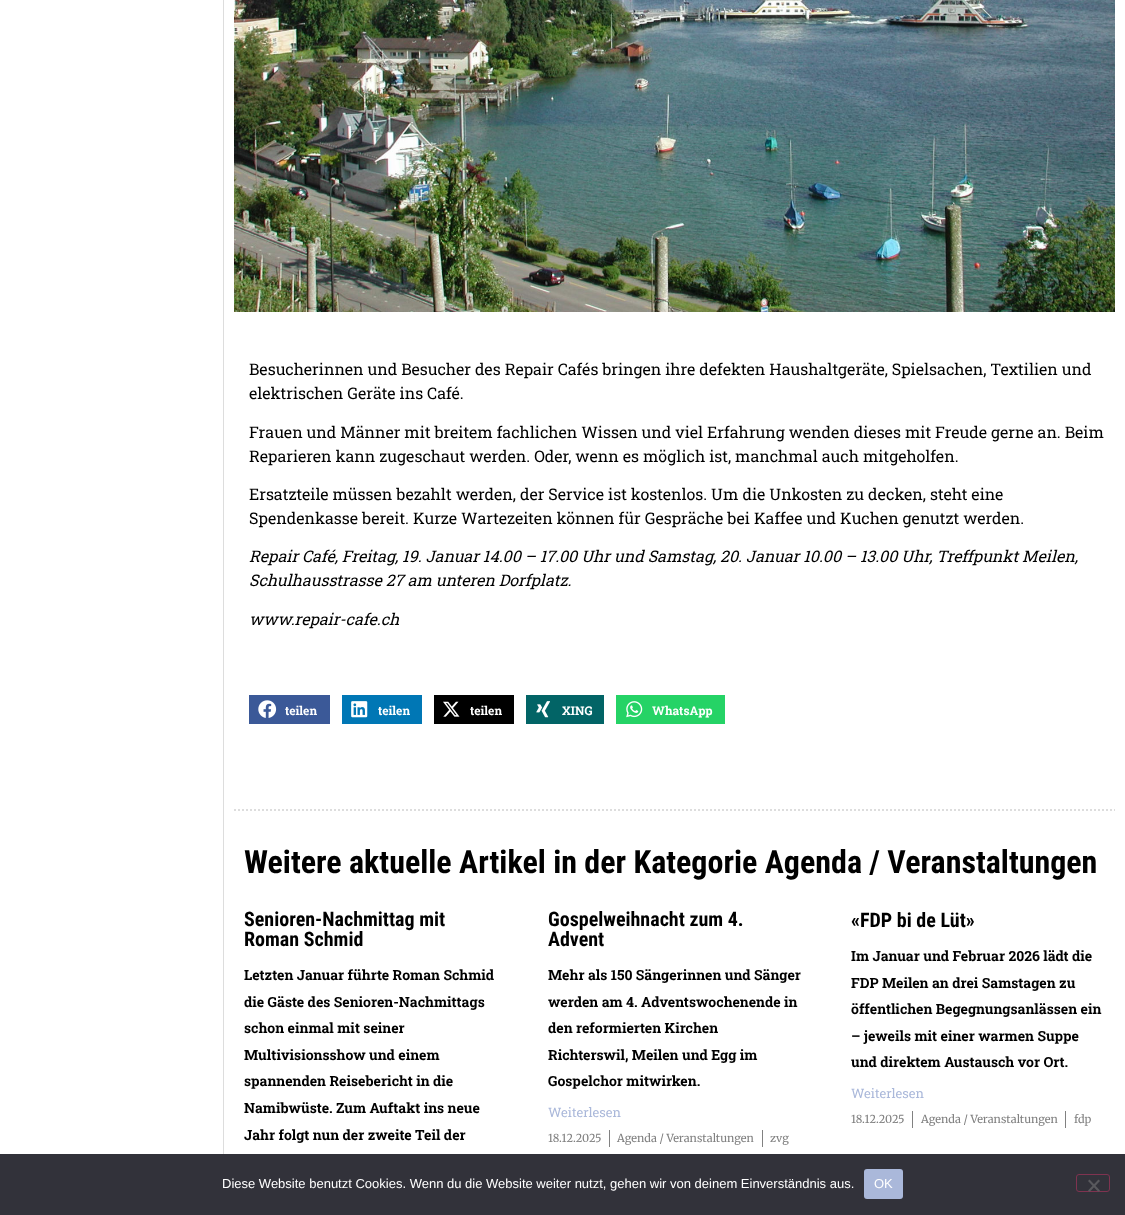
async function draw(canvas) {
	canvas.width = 1125;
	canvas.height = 1215;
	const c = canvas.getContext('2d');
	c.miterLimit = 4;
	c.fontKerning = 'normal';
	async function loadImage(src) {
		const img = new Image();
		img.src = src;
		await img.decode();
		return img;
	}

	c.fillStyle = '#fff';
	c.fillRect(0, 0, 1125, 1215);
	c.fillStyle = '#ddd';
	c.fillRect(223, 0, 1, 1154);
	c.drawImage(await loadImage('img1.png'), 234, 0, 881, 312);
	c.font = '16px Roboto Slab';
	c.fillStyle = '#000';
	for (const [text, x, y] of [
		['Besucherinnen und Besucher des Repair Cafés bringen ihre defekten Haushaltgeräte, Spielsachen, Textilien und', 249, 375],
		['elektrischen Geräte ins Café.', 249, 399],
		['Frauen und Männer mit breitem fachlichen Wissen und viel Erfahrung wenden dieses mit Freude gerne an. Beim', 249, 438],
		['Reparieren kann zugeschaut werden. Oder, wenn es möglich ist, manchmal auch mitgeholfen.', 249, 462],
		['Ersatzteile müssen bezahlt werden, der Service ist kostenlos. Um die Unkosten zu decken, steht eine', 249, 500],
		['Spendenkasse bereit. Kurze Wartezeiten können für Gespräche bei Kaffee und Kuchen genutzt werden.', 249, 524],
	]) {
		c.fillText(text, x, y);
	}
	c.font = 'italic 16px Roboto Slab';
	for (const [text, x, y] of [
		['Repair Café, Freitag, 19. Januar 14.00 – 17.00 Uhr und Samstag, 20. Januar 10.00 – 13.00 Uhr, Treffpunkt Meilen,', 249, 562],
		['Schulhausstrasse 27 am unteren Dorfplatz.', 249, 586],
		['www.repair-cafe.ch', 249, 625],
	]) {
		c.fillText(text, x, y);
	}
	c.fillStyle = '#3b5998';
	c.fillRect(249, 695, 81, 29);
	c.drawImage(await loadImage('img2.png'), 258, 700, 19, 18);
	c.font = 'bold 12px Roboto Slab';
	c.fillStyle = '#fff';
	c.fillText('teilen', 285, 715);
	c.fillStyle = '#0077b5';
	c.fillRect(342, 695, 80, 29);
	c.drawImage(await loadImage('img3.png'), 351, 701, 17, 17);
	c.fillStyle = '#fff';
	c.fillText('teilen', 378, 715);
	c.fillStyle = '#000';
	c.fillRect(434, 695, 80, 29);
	c.drawImage(await loadImage('img4.png'), 443, 701, 17, 16);
	c.fillStyle = '#fff';
	c.fillText('teilen', 470, 715);
	c.fillStyle = '#026466';
	c.fillRect(526, 695, 78, 29);
	c.drawImage(await loadImage('img5.png'), 536, 701, 14, 17);
	c.fillStyle = '#fff';
	c.fillText('XING', 562, 715);
	c.fillStyle = '#25d366';
	c.fillRect(616, 695, 109, 29);
	c.drawImage(await loadImage('img6.png'), 626, 701, 17, 17);
	c.fillStyle = '#fff';
	c.fillText('WhatsApp', 652, 715);
	c.beginPath();
	c.moveTo(234, 810);
	c.lineTo(1115, 810);
	c.strokeStyle = '#ddd';
	c.lineWidth = 2;
	c.setLineDash([2, 2]);
	c.stroke();
	c.font = 'bold 32px Roboto Condensed';
	c.fillStyle = '#000';
	c.fillText('Weitere aktuelle Artikel in der Kategorie Agenda / Veranstaltungen', 244, 873);
	c.font = 'bold 20px Roboto Condensed';
	c.fillText('Senioren-Nachmittag mit', 244, 926);
	c.fillText('Roman Schmid', 244, 946);
	c.font = 'bold 14px Roboto Slab';
	for (const [text, x, y] of [
		['Letzten Januar führte Roman Schmid', 244, 980],
		['die Gäste des Senioren-Nachmittags', 244, 1007],
		['schon einmal mit seiner', 244, 1033],
		['Multivisionsshow und einem', 244, 1060],
		['spannenden Reisebericht in die', 244, 1086],
		['Namibwüste. Zum Auftakt ins neue', 244, 1113],
		['Jahr folgt nun der zweite Teil der', 244, 1140],
	]) {
		c.fillText(text, x, y);
	}
	c.font = 'bold 20px Roboto Condensed';
	c.fillText('Gospelweihnacht zum 4.', 548, 926);
	c.fillText('Advent', 548, 946);
	c.font = 'bold 14px Roboto Slab';
	for (const [text, x, y] of [
		['Mehr als 150 Sängerinnen und Sänger', 548, 980],
		['werden am 4. Adventswochenende in', 548, 1007],
		['den reformierten Kirchen', 548, 1033],
		['Richterswil, Meilen und Egg im', 548, 1060],
		['Gospelchor mitwirken.', 548, 1086],
	]) {
		c.fillText(text, x, y);
	}
	c.font = '13px Roboto Slab';
	c.fillStyle = '#aab8da';
	c.fillText('Weiterlesen', 548, 1117);
	c.font = '11px Merriweather';
	c.fillStyle = '#818181';
	c.fillText('18.12.2025', 548, 1142);
	c.fillRect(609, 1130, 1, 17);
	c.fillText('Agenda / Veranstaltungen', 617, 1142);
	c.fillRect(762, 1130, 1, 17);
	c.fillText('zvg', 770, 1142);
	c.font = 'bold 20px Roboto Condensed';
	c.fillStyle = '#000';
	c.fillText('«FDP bi de Lüt»', 851, 927);
	c.font = 'bold 14px Roboto Slab';
	for (const [text, x, y] of [
		['Im Januar und Februar 2026 lädt die', 851, 961],
		['FDP Meilen an drei Samstagen zu', 851, 988],
		['öffentlichen Begegnungsanlässen ein', 851, 1014],
		['– jeweils mit einer warmen Suppe', 851, 1041],
		['und direktem Austausch vor Ort.', 851, 1067],
	]) {
		c.fillText(text, x, y);
	}
	c.font = '13px Roboto Slab';
	c.fillStyle = '#aab8da';
	c.fillText('Weiterlesen', 851, 1098);
	c.font = '11px Merriweather';
	c.fillStyle = '#818181';
	c.fillText('18.12.2025', 851, 1123);
	c.fillRect(912, 1111, 1, 17);
	c.fillText('Agenda / Veranstaltungen', 921, 1123);
	c.fillRect(1065, 1111, 1, 17);
	c.fillText('fdp', 1074, 1123);
	c.fillStyle = '#32323a';
	c.fillRect(0, 1154, 1125, 61);
	c.font = '13px Liberation Sans';
	c.fillStyle = '#fff';
	c.fillText('Diese Website benutzt Cookies. Wenn du die Website weiter nutzt, gehen wir von deinem Einverständnis aus.', 222, 1188);
	c.fillStyle = '#aab8da';
	c.beginPath();
	c.roundRect(864, 1169, 39, 30, 3);
	c.fill();
	c.fillStyle = '#fff';
	c.fillText('OK', 874, 1188);
	c.beginPath();
	c.roundRect(1076.5, 1174.5, 33, 17, 2.5);
	c.strokeStyle = '#7f3350';
	c.lineWidth = 1;
	c.setLineDash([]);
	c.stroke();
	c.fillStyle = '#59595d';
	c.beginPath();
	c.moveTo(1098.5, 1179.5);
	c.lineTo(1100, 1181);
	c.lineTo(1089.5, 1192);
	c.lineTo(1088, 1190.5);
	c.closePath();
	c.fill();
	c.beginPath();
	c.moveTo(1088, 1181);
	c.lineTo(1089.5, 1179.5);
	c.lineTo(1100, 1190.5);
	c.lineTo(1098.5, 1192);
	c.closePath();
	c.fill();
}

draw(document.querySelector('canvas'));
